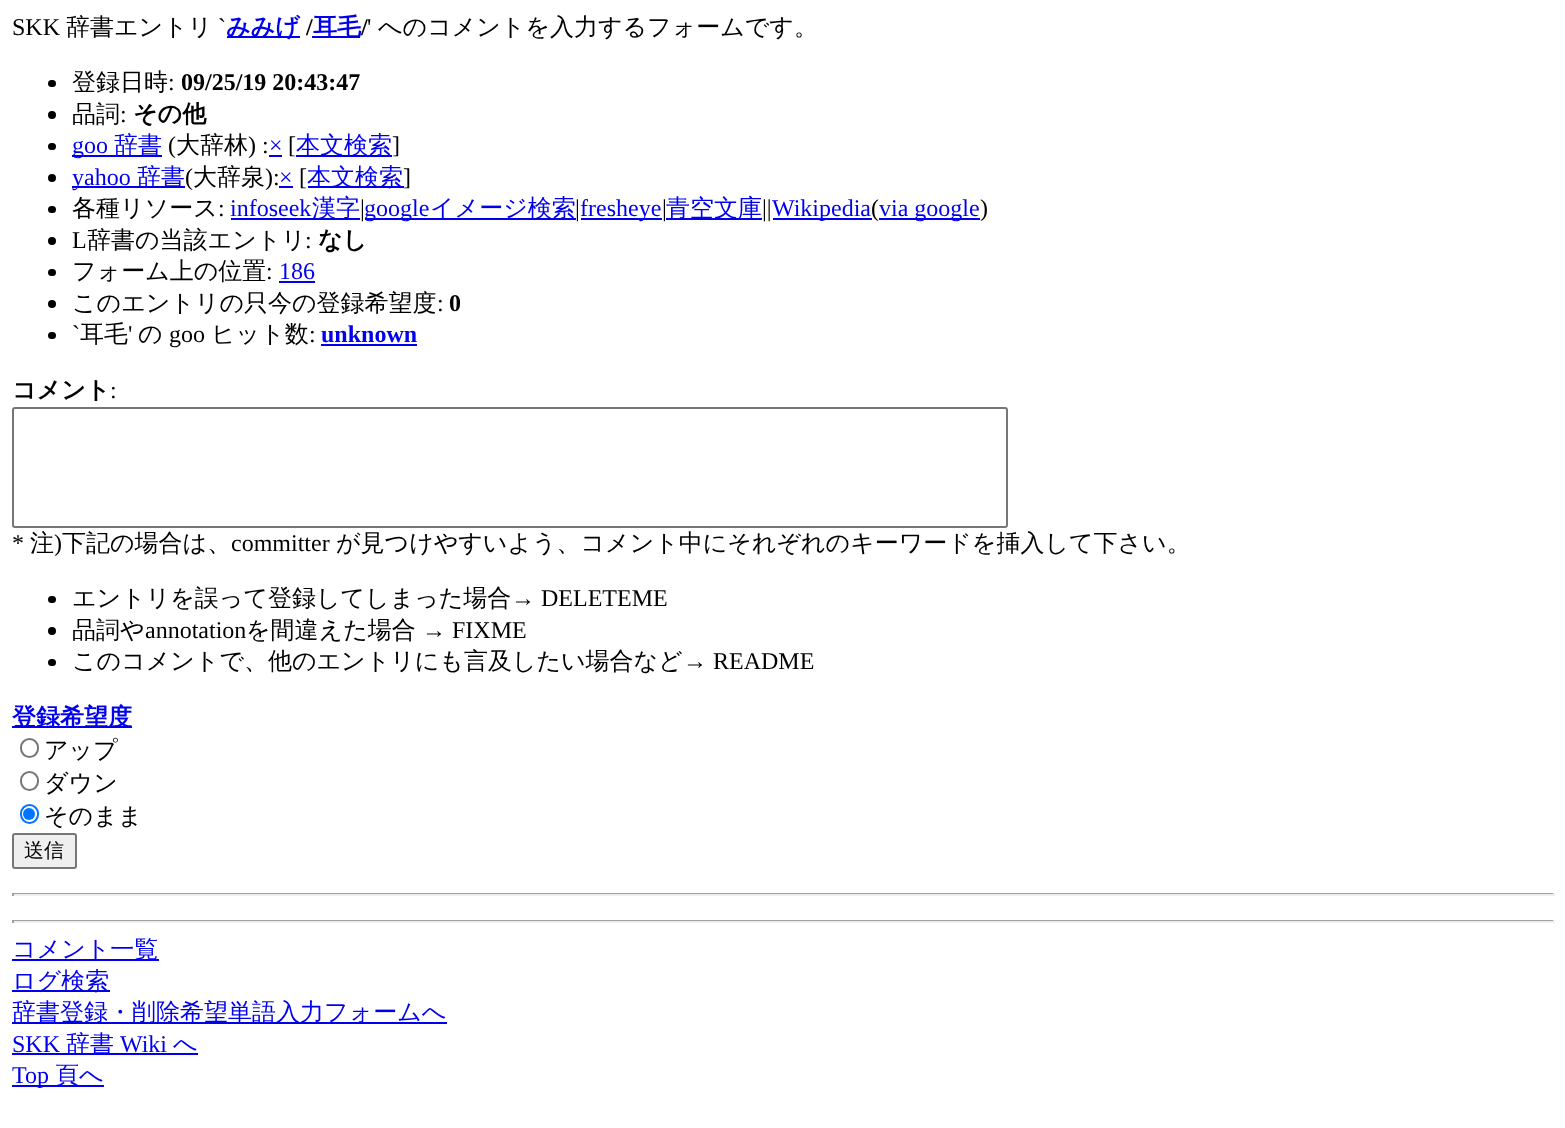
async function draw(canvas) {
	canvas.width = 1565;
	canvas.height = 1128;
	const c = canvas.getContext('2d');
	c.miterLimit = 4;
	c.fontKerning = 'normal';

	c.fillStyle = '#fff';
	c.fillRect(0, 0, 1565, 1128);
	c.font = '24px Liberation Serif';
	c.fillStyle = '#000';
	c.fillText('SKK', 12, 35);
	c.font = '500 24px WenQuanYi Zen Hei';
	c.fillText('辞書エントリ', 66, 35);
	c.font = '24px Liberation Serif';
	c.fillText('`', 218, 35);
	c.fillStyle = '#00e';
	c.fillRect(227, 36, 73, 2);
	c.font = 'bold 24px WenQuanYi Zen Hei';
	c.fillText('みみげ', 226, 35);
	c.font = 'bold 24px Liberation Serif';
	c.fillStyle = '#000';
	c.fillText('/', 306, 35);
	c.fillStyle = '#00e';
	c.fillRect(312, 36, 48, 2);
	c.font = 'bold 24px WenQuanYi Zen Hei';
	c.fillText('耳毛', 313, 35);
	c.font = 'bold 24px Liberation Serif';
	c.fillStyle = '#000';
	c.fillText('/', 361, 35);
	c.font = '24px Liberation Serif';
	c.fillText('\'', 367, 35);
	c.font = '500 24px WenQuanYi Zen Hei';
	c.fillText('へのコメントを入力するフォームです。', 378, 35);
	c.beginPath();
	c.roundRect(48, 80, 8, 7, 3.5);
	c.fill();
	c.fillText('登録日時', 72, 90);
	c.font = '24px Liberation Serif';
	c.fillText(':', 168, 90);
	c.font = 'bold 24px Liberation Serif';
	c.fillText('09/25/19 20:43:47', 181, 90);
	c.beginPath();
	c.arc(52, 115, 4, 0, 2 * Math.PI);
	c.fill();
	c.font = '500 24px WenQuanYi Zen Hei';
	c.fillText('品詞', 72, 122);
	c.font = '24px Liberation Serif';
	c.fillText(':', 120, 122);
	c.font = 'bold 24px WenQuanYi Zen Hei';
	c.fillText('その他', 133, 122);
	c.beginPath();
	c.roundRect(48, 143, 8, 7, 3.5);
	c.fill();
	c.fillStyle = '#00e';
	c.fillRect(72, 155, 90, 2);
	c.font = '24px Liberation Serif';
	c.fillText('goo', 72, 153);
	c.font = '500 24px WenQuanYi Zen Hei';
	c.fillText('辞書', 114, 153);
	c.font = '24px Liberation Serif';
	c.fillStyle = '#000';
	c.fillText('(', 168, 153);
	c.font = '500 24px WenQuanYi Zen Hei';
	c.fillText('大辞林', 176, 153);
	c.font = '24px Liberation Serif';
	c.fillText(') :', 248, 153);
	c.fillStyle = '#00e';
	c.fillText('×', 269, 153);
	c.fillRect(269, 155, 13, 2);
	c.fillStyle = '#000';
	c.fillText('[', 288, 153);
	c.fillStyle = '#00e';
	c.fillRect(296, 155, 96, 2);
	c.font = '500 24px WenQuanYi Zen Hei';
	c.fillText('本文検索', 296, 153);
	c.font = '24px Liberation Serif';
	c.fillStyle = '#000';
	c.fillText(']', 392, 153);
	c.beginPath();
	c.arc(52, 178, 4, 0, 2 * Math.PI);
	c.fill();
	c.fillStyle = '#00e';
	c.fillRect(72, 186, 113, 2);
	c.fillText('yahoo', 72, 185);
	c.font = '500 24px WenQuanYi Zen Hei';
	c.fillText('辞書', 137, 185);
	c.font = '24px Liberation Serif';
	c.fillStyle = '#000';
	c.fillText('(', 185, 185);
	c.font = '500 24px WenQuanYi Zen Hei';
	c.fillText('大辞泉', 193, 185);
	c.font = '24px Liberation Serif';
	c.fillText('):', 265, 185);
	c.fillStyle = '#00e';
	c.fillText('×', 279, 185);
	c.fillRect(279, 186, 14, 2);
	c.fillStyle = '#000';
	c.fillText('[', 299, 185);
	c.fillStyle = '#00e';
	c.fillRect(308, 186, 96, 2);
	c.font = '500 24px WenQuanYi Zen Hei';
	c.fillText('本文検索', 307, 185);
	c.font = '24px Liberation Serif';
	c.fillStyle = '#000';
	c.fillText(']', 403, 185);
	c.beginPath();
	c.roundRect(48, 206, 8, 7, 3.5);
	c.fill();
	c.font = '500 24px WenQuanYi Zen Hei';
	c.fillText('各種リソース', 72, 216);
	c.font = '24px Liberation Serif';
	c.fillText(':', 218, 216);
	c.fillStyle = '#00e';
	c.fillText('infoseek', 230, 216);
	c.fillRect(231, 218, 129, 2);
	c.font = '500 24px WenQuanYi Zen Hei';
	c.fillText('漢字', 312, 216);
	c.font = '24px Liberation Serif';
	c.fillStyle = '#000';
	c.fillText('|', 360, 216);
	c.fillStyle = '#00e';
	c.fillRect(365, 218, 211, 2);
	c.fillText('google', 364, 216);
	c.font = '500 24px WenQuanYi Zen Hei';
	c.fillText('イメージ検索', 430, 216);
	c.font = '24px Liberation Serif';
	c.fillStyle = '#000';
	c.fillText('|', 575, 216);
	c.fillStyle = '#00e';
	c.fillRect(581, 218, 81, 2);
	c.fillText('fresheye', 580, 216);
	c.fillStyle = '#000';
	c.fillText('|', 662, 216);
	c.fillStyle = '#00e';
	c.fillRect(666, 218, 96, 2);
	c.font = '500 24px WenQuanYi Zen Hei';
	c.fillText('青空文庫', 666, 216);
	c.font = '24px Liberation Serif';
	c.fillStyle = '#000';
	c.fillText('||', 762, 216);
	c.fillStyle = '#00e';
	c.fillRect(773, 218, 99, 2);
	c.fillText('Wikipedia', 772, 216);
	c.fillStyle = '#000';
	c.fillText('(', 871, 216);
	c.fillStyle = '#00e';
	c.fillRect(879, 218, 101, 2);
	c.fillText('via google', 879, 216);
	c.fillStyle = '#000';
	c.fillText(')', 980, 216);
	c.beginPath();
	c.arc(52, 241, 4, 0, 2 * Math.PI);
	c.fill();
	c.fillText('L', 72, 248);
	c.font = '500 24px WenQuanYi Zen Hei';
	c.fillText('辞書の当該エントリ', 87, 248);
	c.font = '24px Liberation Serif';
	c.fillText(':', 305, 248);
	c.font = 'bold 24px WenQuanYi Zen Hei';
	c.fillText('なし', 318, 248);
	c.beginPath();
	c.roundRect(48, 269, 8, 7, 3.5);
	c.fill();
	c.font = '500 24px WenQuanYi Zen Hei';
	c.fillText('フォーム上の位置', 72, 279);
	c.font = '24px Liberation Serif';
	c.fillText(':', 266, 279);
	c.fillStyle = '#00e';
	c.fillText('186', 279, 279);
	c.fillRect(279, 281, 36, 2);
	c.fillStyle = '#000';
	c.beginPath();
	c.arc(52, 304, 4, 0, 2 * Math.PI);
	c.fill();
	c.font = '500 24px WenQuanYi Zen Hei';
	c.fillText('このエントリの只今の登録希望度', 72, 311);
	c.font = '24px Liberation Serif';
	c.fillText(':', 437, 311);
	c.font = 'bold 24px Liberation Serif';
	c.fillText('0', 449, 311);
	c.beginPath();
	c.roundRect(48, 332, 8, 7, 3.5);
	c.fill();
	c.font = '24px Liberation Serif';
	c.fillText('`', 72, 342);
	c.font = '500 24px WenQuanYi Zen Hei';
	c.fillText('耳毛', 80, 342);
	c.font = '24px Liberation Serif';
	c.fillText('\'', 128, 342);
	c.font = '500 24px WenQuanYi Zen Hei';
	c.fillText('の', 138, 342);
	c.font = '24px Liberation Serif';
	c.fillText('goo', 169, 342);
	c.font = '500 24px WenQuanYi Zen Hei';
	c.fillText('ヒット数', 211, 342);
	c.font = '24px Liberation Serif';
	c.fillText(':', 309, 342);
	c.font = 'bold 24px Liberation Serif';
	c.fillStyle = '#00e';
	c.fillText('unknown', 321, 342);
	c.fillRect(321, 344, 96, 2);
	c.font = 'bold 24px WenQuanYi Zen Hei';
	c.fillStyle = '#000';
	c.fillText('コメント', 12, 398);
	c.font = '24px Liberation Serif';
	c.fillText(':', 110, 398);
	c.beginPath();
	c.roundRect(13, 408, 994, 119, 2);
	c.strokeStyle = '#767676';
	c.lineWidth = 2;
	c.stroke();
	c.fillText('*', 12, 551);
	c.font = '500 24px WenQuanYi Zen Hei';
	c.fillText('注', 30, 551);
	c.font = '24px Liberation Serif';
	c.fillText(')', 54, 551);
	c.font = '500 24px WenQuanYi Zen Hei';
	c.fillText('下記の場合は、', 62, 551);
	c.font = '24px Liberation Serif';
	c.fillText('committer', 231, 551);
	c.font = '500 24px WenQuanYi Zen Hei';
	c.fillText('が見つけやすいよう、コメント中にそれぞれのキーワードを挿入して下さい。', 336, 551);
	c.beginPath();
	c.roundRect(48, 596, 8, 7, 3.5);
	c.fill();
	c.fillText('エントリを誤って登録してしまった場合', 72, 606);
	c.font = '24px Liberation Serif';
	c.fillText('→ DELETEME', 511, 606);
	c.beginPath();
	c.arc(52, 631, 4, 0, 2 * Math.PI);
	c.fill();
	c.font = '500 24px WenQuanYi Zen Hei';
	c.fillText('品詞や', 72, 638);
	c.font = '24px Liberation Serif';
	c.fillText('annotation', 145, 638);
	c.font = '500 24px WenQuanYi Zen Hei';
	c.fillText('を間違えた場合', 246, 638);
	c.font = '24px Liberation Serif';
	c.fillText('→ FIXME', 422, 638);
	c.beginPath();
	c.roundRect(48, 659, 8, 7, 3.5);
	c.fill();
	c.font = '500 24px WenQuanYi Zen Hei';
	c.fillText('このコメントで、他のエントリにも言及したい場合など', 72, 669);
	c.font = '24px Liberation Serif';
	c.fillText('→ README', 683, 669);
	c.fillStyle = '#00e';
	c.fillRect(12, 726, 120, 2);
	c.font = 'bold 24px WenQuanYi Zen Hei';
	c.fillText('登録希望度', 12, 725);
	c.beginPath();
	c.roundRect(21, 739, 17, 18, 8.5);
	c.stroke();
	c.font = '500 24px WenQuanYi Zen Hei';
	c.fillStyle = '#000';
	c.fillText('アップ', 44, 758);
	c.beginPath();
	c.roundRect(21, 772, 17, 18, 8.5);
	c.stroke();
	c.fillText('ダウン', 44, 791);
	c.beginPath();
	c.roundRect(21, 805, 17, 18, 8.5);
	c.strokeStyle = '#0075ff';
	c.stroke();
	c.fillStyle = '#0075ff';
	c.beginPath();
	c.arc(29, 814, 6, 0, 2 * Math.PI);
	c.fill();
	c.fillStyle = '#000';
	c.fillText('そのまま', 44, 824);
	c.fillStyle = '#efefef';
	c.beginPath();
	c.roundRect(13, 834, 63, 34, 2);
	c.fill();
	c.strokeStyle = '#767676';
	c.stroke();
	c.font = '500 20px WenQuanYi Zen Hei';
	c.fillStyle = '#000';
	c.fillText('送信', 24, 857);
	for (const [x, y, w, h, color] of [
		[12, 893, 1542, 1, '#9f9f9f'],
		[1553, 893, 2, 3, '#eee'],
		[12, 894, 1542, 2, '#eee'],
		[12, 893, 2, 3, '#9f9f9f'],
		[12, 920, 1542, 1, '#9f9f9f'],
		[1553, 920, 2, 3, '#eee'],
		[12, 921, 1542, 2, '#eee'],
		[12, 920, 2, 3, '#9f9f9f'],
		[12, 959, 147, 2, '#00e'],
	]) {
		c.fillStyle = color;
		c.fillRect(x, y, w, h);
	}
	c.font = '500 24px WenQuanYi Zen Hei';
	c.fillText('コメント一覧', 12, 957);
	c.fillRect(12, 990, 98, 2);
	c.fillText('ログ検索', 12, 989);
	c.fillRect(12, 1022, 435, 2);
	c.fillText('辞書登録・削除希望単語入力フォームへ', 12, 1020);
	c.font = '24px Liberation Serif';
	c.fillText('SKK', 12, 1052);
	c.fillRect(12, 1053, 186, 2);
	c.font = '500 24px WenQuanYi Zen Hei';
	c.fillText('辞書', 66, 1052);
	c.font = '24px Liberation Serif';
	c.fillText('Wiki', 120, 1052);
	c.font = '500 24px WenQuanYi Zen Hei';
	c.fillText('へ', 173, 1052);
	c.fillRect(12, 1085, 92, 2);
	c.font = '24px Liberation Serif';
	c.fillText('Top', 12, 1083);
	c.font = '500 24px WenQuanYi Zen Hei';
	c.fillText('頁へ', 55, 1083);
}

draw(document.querySelector('canvas'));
